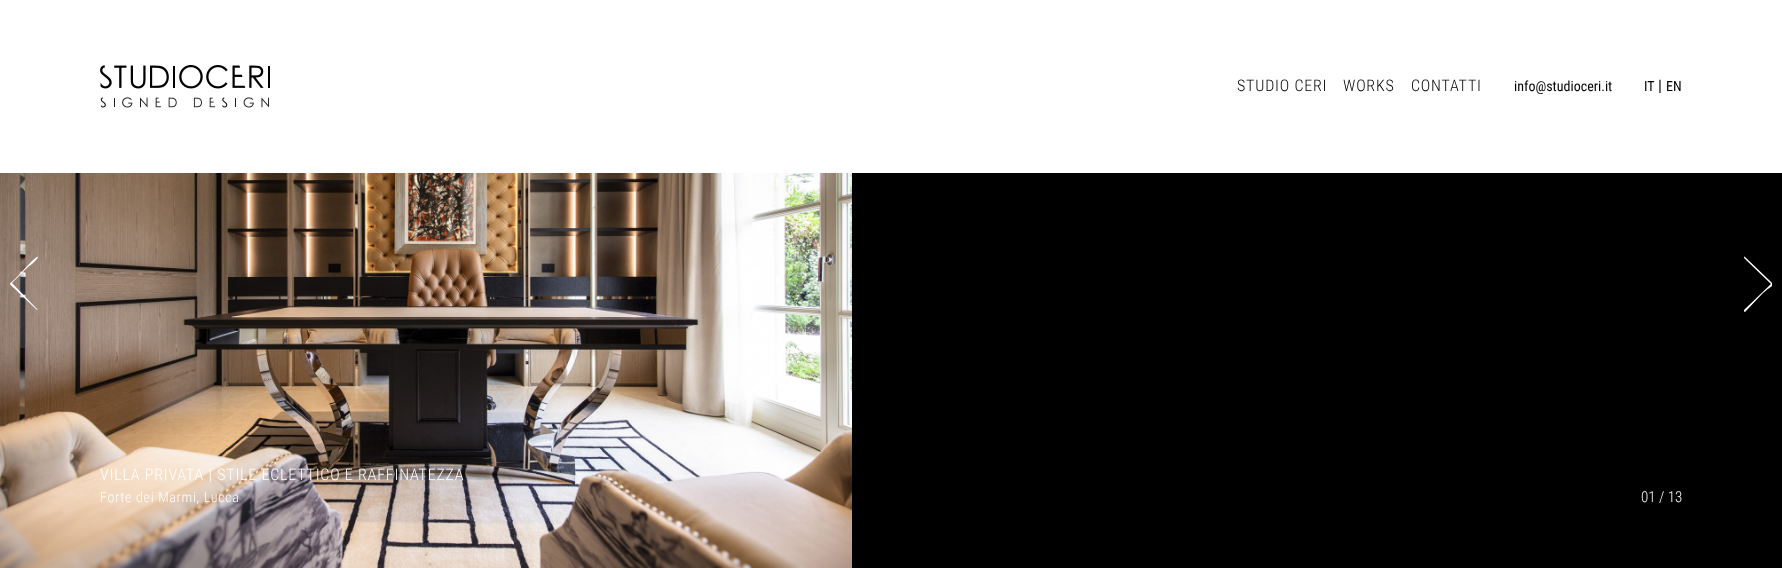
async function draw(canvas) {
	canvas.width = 1782;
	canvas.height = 568;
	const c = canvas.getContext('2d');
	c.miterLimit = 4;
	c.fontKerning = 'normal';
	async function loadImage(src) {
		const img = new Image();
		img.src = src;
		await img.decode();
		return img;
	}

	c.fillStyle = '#000';
	c.fillRect(0, 0, 1782, 568);
	c.fillStyle = '#fff';
	c.fillRect(0, 0, 1782, 173);
	c.drawImage(await loadImage('img1.png'), 100, 65, 170, 43);
	c.letterSpacing = '0.8px';
	c.font = '300 16px Roboto Condensed';
	c.fillStyle = '#000';
	for (const [text, x, y] of [
		['STUDIO CERI', 1237, 91],
		['WORKS', 1343, 91],
		['CONTATTI', 1411, 91],
	]) {
		c.fillText(text, x, y);
	}
	c.letterSpacing = '0px';
	c.font = '14px Roboto Condensed';
	c.fillText('info@studioceri.it', 1514, 91);
	c.fillText('IT', 1644, 91);
	c.font = '16px Roboto';
	c.fillText('|', 1658, 91);
	c.font = '14px Roboto Condensed';
	c.fillText('EN', 1666, 91);
	c.drawImage(await loadImage('img2.png'), 0, 173, 852, 395);
	c.fillStyle = '#fff';
	c.beginPath();
	c.moveTo(37, 310);
	c.bezierCurveTo(37, 310, 38, 310, 37, 309);
	c.lineTo(12, 283);
	c.lineTo(29, 266);
	c.bezierCurveTo(30, 266, 38, 259, 38, 257);
	c.bezierCurveTo(37, 256, 36, 258, 32, 261);
	c.lineTo(15, 279);
	c.bezierCurveTo(7, 286, 9, 282, 19, 293);
	c.closePath();
	c.fill();
	c.save();
	c.beginPath();
	c.rect(1744, 256, 28, 56);
	c.clip();
	c.beginPath();
	c.moveTo(1745, 312);
	c.bezierCurveTo(1744, 312, 1744, 311, 1744, 310);
	c.lineTo(1771, 284);
	c.lineTo(1744, 258);
	c.bezierCurveTo(1744, 257, 1745, 256, 1745, 257);
	c.lineTo(1768, 279);
	c.bezierCurveTo(1776, 287, 1774, 283, 1763, 293);
	c.closePath();
	c.fill();
	c.restore();
	c.letterSpacing = '0.8px';
	c.font = '300 16px Roboto Condensed';
	c.fillText('VILLA PRIVATA | STILE ECLETTICO E RAFFINATEZZA', 100, 480);
	c.letterSpacing = '0.7px';
	c.font = '300 14px Roboto Condensed';
	c.fillText('Forte dei Marmi, Lucca', 100, 502);
	c.letterSpacing = '0px';
	c.font = '300 15px Roboto Condensed';
	c.fillText('01 / 13', 1641, 502);
}

draw(document.querySelector('canvas'));
